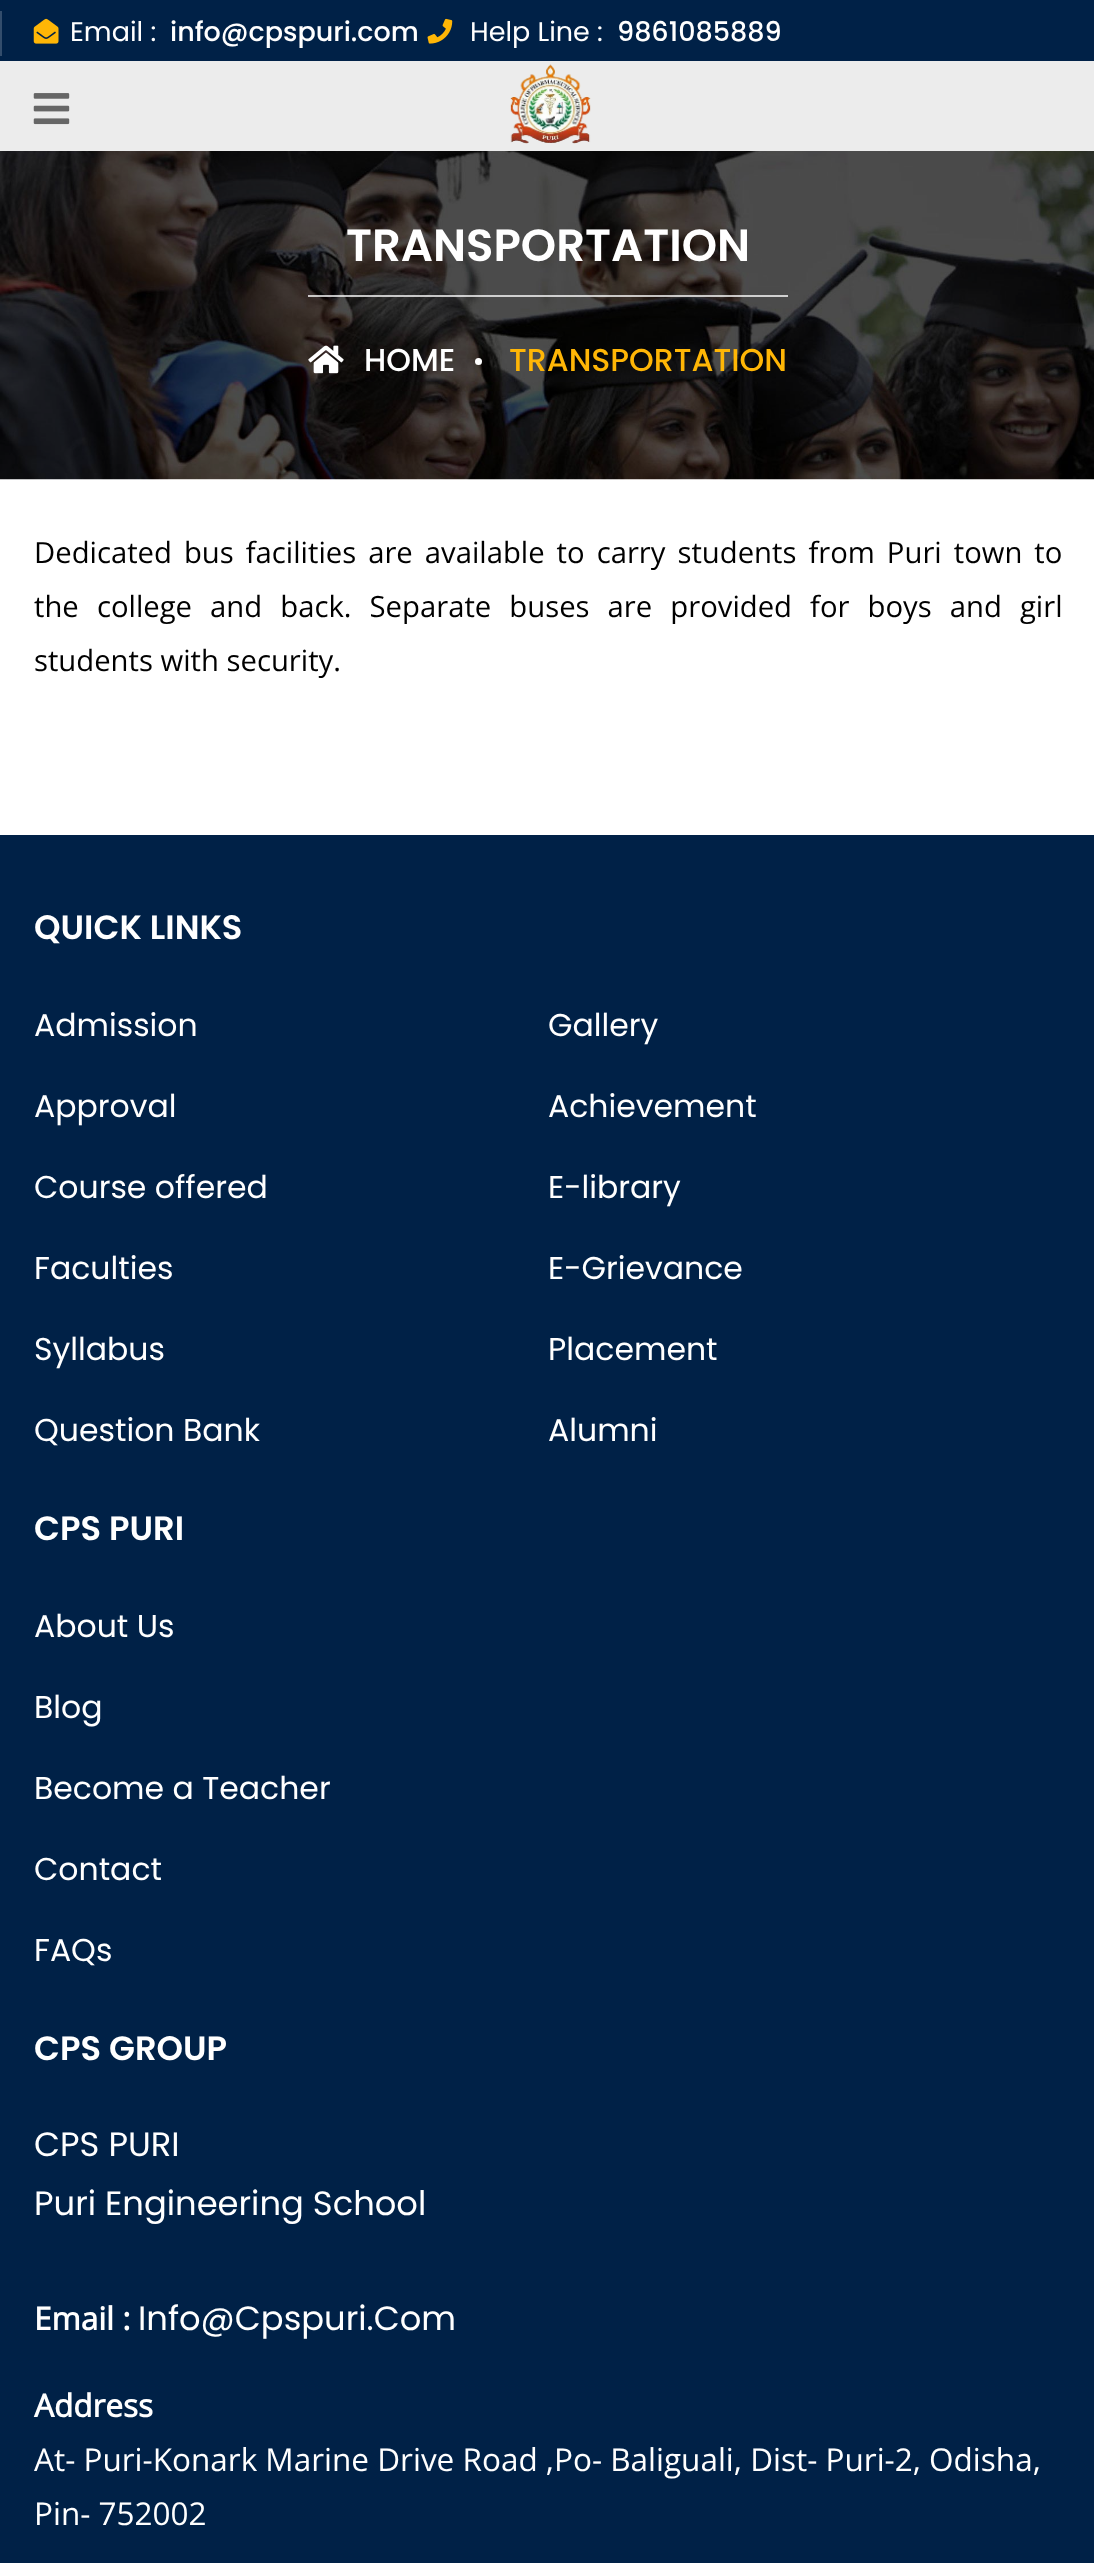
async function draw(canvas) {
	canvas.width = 1094;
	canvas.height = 2563;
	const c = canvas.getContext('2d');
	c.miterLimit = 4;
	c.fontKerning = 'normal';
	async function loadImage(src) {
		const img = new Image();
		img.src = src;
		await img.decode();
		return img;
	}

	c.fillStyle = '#fff';
	c.fillRect(0, 0, 1094, 2563);
	c.fillStyle = '#002147';
	c.fillRect(0, 0, 1094, 61);
	c.drawImage(await loadImage('img1.png'), 33, 18, 26, 26);
	c.font = '27px Poppins';
	c.fillStyle = '#fff';
	c.fillText('Email :', 70, 41);
	c.font = '500 27px Poppins';
	c.fillText('info@cpspuri.com', 170, 41);
	c.fillStyle = '#334d6c';
	c.fillRect(0, 11, 2, 45);
	c.drawImage(await loadImage('img2.png'), 427, 18, 26, 26);
	c.font = '27px Poppins';
	c.fillStyle = '#fff';
	c.fillText('Help Line :', 470, 41);
	c.font = '500 27px Poppins';
	c.fillText('9861085889', 617, 41);
	c.fillStyle = '#ececec';
	c.fillRect(0, 61, 1094, 90);
	c.drawImage(await loadImage('img3.png'), 33, 93, 37, 32);
	c.drawImage(await loadImage('img4.png'), 510, 64, 81, 80);
	c.drawImage(await loadImage('img5.png'), 0, 151, 1094, 329);
	c.font = '600 45px Poppins';
	c.fillStyle = '#fff';
	c.fillText('TRANSPORTATION', 346, 261);
	c.fillStyle = '#ffffffbd';
	c.fillRect(308, 295, 480, 2);
	c.drawImage(await loadImage('img6.png'), 308, 345, 36, 29);
	c.font = '500 31.5px Poppins';
	c.fillStyle = '#fff';
	c.fillText('HOME', 364, 371);
	c.beginPath();
	c.arc(478.5, 361.5, 3.5, 0, 2 * Math.PI);
	c.fill();
	c.fillStyle = '#ffb606';
	c.fillText('TRANSPORTATION', 509, 371);
	c.wordSpacing = '4.4px';
	c.font = '29.25px Open Sans';
	c.fillStyle = '#000';
	c.fillText('Dedicated bus facilities are available to carry students from Puri town to', 34, 563);
	c.wordSpacing = '10.5px';
	c.fillText('the college and back. Separate buses are provided for boys and girl', 34, 617);
	c.wordSpacing = '0px';
	c.fillText('students with security.', 34, 671);
	c.fillStyle = '#002147';
	c.fillRect(0, 835, 1094, 1728);
	c.font = '600 33.75px Poppins';
	c.fillStyle = '#fff';
	c.fillText('QUICK LINKS', 34, 939);
	c.font = '31.5px Poppins';
	for (const [text, x, y] of [
		['Admission', 34, 1036],
		['Approval', 34, 1117],
		['Course offered', 34, 1198],
		['Faculties', 34, 1279],
		['Syllabus', 34, 1360],
		['Question Bank', 34, 1441],
		['Gallery', 548, 1036],
		['Achievement', 548, 1117],
		['E-library', 548, 1198],
		['E-Grievance', 548, 1279],
		['Placement', 548, 1360],
		['Alumni', 548, 1441],
	]) {
		c.fillText(text, x, y);
	}
	c.font = '600 33.75px Poppins';
	c.fillText('CPS PURI', 34, 1540);
	c.font = '31.5px Poppins';
	for (const [text, x, y] of [
		['About Us', 34, 1637],
		['Blog', 34, 1718],
		['Become a Teacher', 34, 1799],
		['Contact', 34, 1880],
		['FAQs', 34, 1961],
	]) {
		c.fillText(text, x, y);
	}
	c.font = '600 33.75px Poppins';
	c.fillText('CPS GROUP', 34, 2060);
	c.font = '33.75px Poppins';
	c.fillText('CPS PURI', 34, 2156);
	c.fillText('Puri Engineering School', 34, 2215);
	c.font = 'bold 31.5px Open Sans';
	c.fillText('Email :', 34, 2330);
	c.font = '33.75px Poppins';
	c.fillText('Info@Cpspuri.Com', 138, 2330);
	c.font = 'bold 31.5px Open Sans';
	c.fillText('Address', 34, 2417);
	c.font = '31.5px Open Sans';
	c.fillText('At- Puri-Konark Marine Drive Road ,Po- Baliguali, Dist- Puri-2, Odisha,', 34, 2471);
	c.fillText('Pin- 752002', 34, 2525);
}

draw(document.querySelector('canvas'));
